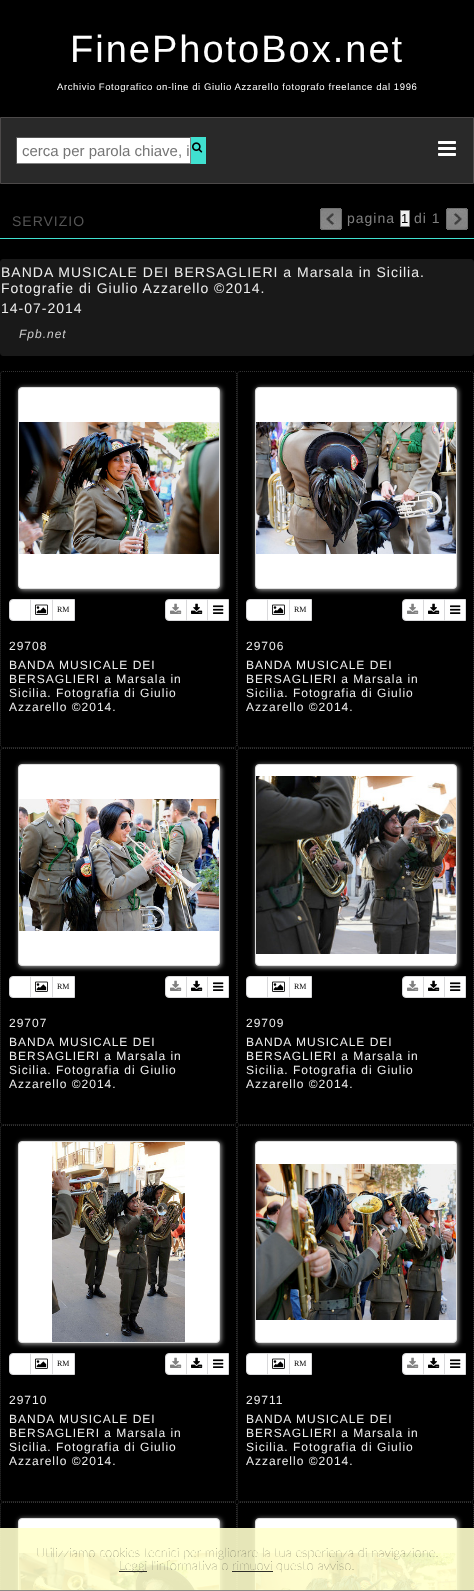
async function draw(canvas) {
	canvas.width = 474;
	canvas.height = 1591;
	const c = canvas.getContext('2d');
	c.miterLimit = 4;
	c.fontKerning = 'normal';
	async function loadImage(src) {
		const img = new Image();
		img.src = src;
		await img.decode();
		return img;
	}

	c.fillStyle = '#000';
	c.fillRect(0, 0, 474, 1591);
	c.letterSpacing = '2px';
	c.font = '38px Liberation Sans';
	c.fillStyle = '#fff';
	c.fillText('FinePhotoBox.net', 70, 62);
	c.letterSpacing = '0.6px';
	c.font = '9.5px Liberation Sans';
	c.fillText('Archivio Fotografico on-line di Giulio Azzarello fotografo freelance dal 1996', 57, 90);
	c.fillStyle = '#292929';
	c.beginPath();
	c.rect(0.5, 117.5, 473, 66);
	c.fill();
	c.strokeStyle = '#4c4949';
	c.stroke();
	for (const [x, y, w, h, color] of [
		[17, 138, 173, 25, '#fff'],
		[16, 137, 175, 1, '#555'],
		[190, 137, 1, 27, '#808080'],
		[16, 163, 175, 1, '#808080'],
		[16, 137, 1, 27, '#555'],
	]) {
		c.fillStyle = color;
		c.fillRect(x, y, w, h);
	}
	c.letterSpacing = '0px';
	c.font = '15px Liberation Sans';
	c.fillStyle = '#757575';
	c.fillText('cerca per parola chiave, i', 22, 156);
	c.fillStyle = '#40e0d0';
	c.fillRect(191, 137, 15, 27);
	c.drawImage(await loadImage('img1.png'), 192, 142, 11, 11);
	c.drawImage(await loadImage('img2.png'), 438, 141, 18, 15);
	c.fillRect(0, 238, 474, 1);
	c.letterSpacing = '1px';
	c.font = '14px Liberation Sans';
	c.fillStyle = '#555';
	c.fillText('SERVIZIO', 12, 226);
	c.drawImage(await loadImage('img3.png'), 320, 208, 22, 22);
	c.fillStyle = '#808080';
	c.fillText('pagina', 347, 223);
	c.fillStyle = '#efefef';
	c.beginPath();
	c.rect(400.5, 210.5, 9, 16);
	c.fill();
	c.strokeStyle = '#808080';
	c.stroke();
	c.letterSpacing = '0px';
	c.font = '13px Liberation Sans';
	c.fillStyle = '#000';
	c.fillText('1', 401, 223);
	c.letterSpacing = '1px';
	c.font = '14px Liberation Sans';
	c.fillStyle = '#808080';
	c.fillText('di 1', 414, 223);
	c.drawImage(await loadImage('img4.png'), 446, 208, 22, 22);
	c.fillStyle = '#191919';
	c.beginPath();
	c.roundRect(0.5, 259.5, 473, 96, 2.5);
	c.fill();
	c.strokeStyle = '#191919';
	c.stroke();
	c.fillStyle = '#eee';
	for (const [text, x, y] of [
		['BANDA MUSICALE DEI BERSAGLIERI a Marsala in Sicilia.', 1, 277],
		['Fotografie di Giulio Azzarello ©2014.', 1, 293],
		['14-07-2014', 1, 313],
	]) {
		c.fillText(text, x, y);
	}
	c.font = 'italic 12px Liberation Sans';
	c.fillStyle = '#ccc';
	c.fillText('Fpb.net', 19, 338);
	c.beginPath();
	c.moveTo(3, 371.5);
	c.lineTo(234, 371.5);
	c.bezierCurveTo(235.5, 371.5, 236.5, 372.5, 236.5, 374);
	c.lineTo(236.5, 745);
	c.bezierCurveTo(236.5, 746.5, 235.5, 747.5, 234, 747.5);
	c.lineTo(3, 747.5);
	c.bezierCurveTo(1.5, 747.5, 0.5, 746.5, 0.5, 745);
	c.lineTo(0.5, 374);
	c.bezierCurveTo(0.5, 372.5, 1.5, 371.5, 3, 371.5);
	c.closePath();
	c.strokeStyle = '#333';
	c.setLineDash([1, 1]);
	c.stroke();
	c.fillStyle = '#aaa';
	c.filter = 'blur(2.5px)';
	c.beginPath();
	c.roundRect(19, 388, 202, 202, 4);
	c.fill();
	c.filter = 'none';
	c.fillStyle = '#fff';
	c.beginPath();
	c.roundRect(18.5, 387.5, 201, 201, 3.5);
	c.fill();
	c.strokeStyle = '#ddd';
	c.setLineDash([]);
	c.stroke();
	c.drawImage(await loadImage('img5.png'), 19, 422, 200, 132);
	c.beginPath();
	c.roundRect(9.5, 599.5, 21, 21, [3.5, 0, 0, 3.5]);
	c.fill();
	c.strokeStyle = '#d9d9db';
	c.stroke();
	c.beginPath();
	c.rect(30.5, 599.5, 22, 21);
	c.fill();
	c.stroke();
	c.drawImage(await loadImage('img6.png'), 35, 604, 13, 11);
	c.beginPath();
	c.rect(52.5, 599.5, 22, 21);
	c.fill();
	c.stroke();
	c.letterSpacing = '0px';
	c.font = '8px Liberation Serif';
	c.fillStyle = '#000';
	c.fillText('RM', 57, 612);
	c.fillStyle = '#fff';
	c.beginPath();
	c.rect(207.5, 599.5, 21, 21);
	c.fill();
	c.stroke();
	c.beginPath();
	c.rect(186.5, 599.5, 21, 21);
	c.fill();
	c.stroke();
	c.beginPath();
	c.roundRect(165.5, 599.5, 21, 21, [3.5, 0, 0, 3.5]);
	c.fill();
	c.stroke();
	c.drawImage(await loadImage('img7.png'), 170, 603, 12, 11);
	c.drawImage(await loadImage('img8.png'), 191, 603, 12, 11);
	c.drawImage(await loadImage('img9.png'), 213, 605, 11, 9);
	c.letterSpacing = '1px';
	c.font = '12px Liberation Sans';
	c.fillStyle = '#eee';
	for (const [text, x, y] of [
		['29708', 9, 650],
		['BANDA MUSICALE DEI', 9, 669],
		['BERSAGLIERI a Marsala in', 9, 683],
		['Sicilia. Fotografia di Giulio', 9, 697],
		['Azzarello ©2014.', 9, 711],
	]) {
		c.fillText(text, x, y);
	}
	c.beginPath();
	c.moveTo(240, 371.5);
	c.lineTo(471, 371.5);
	c.bezierCurveTo(472.5, 371.5, 473.5, 372.5, 473.5, 374);
	c.lineTo(473.5, 745);
	c.bezierCurveTo(473.5, 746.5, 472.5, 747.5, 471, 747.5);
	c.lineTo(240, 747.5);
	c.bezierCurveTo(238.5, 747.5, 237.5, 746.5, 237.5, 745);
	c.lineTo(237.5, 374);
	c.bezierCurveTo(237.5, 372.5, 238.5, 371.5, 240, 371.5);
	c.closePath();
	c.strokeStyle = '#333';
	c.setLineDash([1, 1]);
	c.stroke();
	c.fillStyle = '#aaa';
	c.filter = 'blur(2.5px)';
	c.beginPath();
	c.roundRect(256, 388, 202, 202, 4);
	c.fill();
	c.filter = 'none';
	c.fillStyle = '#fff';
	c.beginPath();
	c.roundRect(255.5, 387.5, 201, 201, 3.5);
	c.fill();
	c.strokeStyle = '#ddd';
	c.setLineDash([]);
	c.stroke();
	c.drawImage(await loadImage('img10.png'), 256, 422, 200, 132);
	c.beginPath();
	c.roundRect(246.5, 599.5, 21, 21, [3.5, 0, 0, 3.5]);
	c.fill();
	c.strokeStyle = '#d9d9db';
	c.stroke();
	c.beginPath();
	c.rect(267.5, 599.5, 22, 21);
	c.fill();
	c.stroke();
	c.drawImage(await loadImage('img6.png'), 272, 604, 13, 11);
	c.beginPath();
	c.rect(289.5, 599.5, 22, 21);
	c.fill();
	c.stroke();
	c.letterSpacing = '0px';
	c.font = '8px Liberation Serif';
	c.fillStyle = '#000';
	c.fillText('RM', 294, 612);
	c.fillStyle = '#fff';
	c.beginPath();
	c.rect(444.5, 599.5, 21, 21);
	c.fill();
	c.stroke();
	c.beginPath();
	c.rect(423.5, 599.5, 21, 21);
	c.fill();
	c.stroke();
	c.beginPath();
	c.roundRect(402.5, 599.5, 21, 21, [3.5, 0, 0, 3.5]);
	c.fill();
	c.stroke();
	c.drawImage(await loadImage('img7.png'), 407, 603, 12, 11);
	c.drawImage(await loadImage('img8.png'), 428, 603, 12, 11);
	c.drawImage(await loadImage('img9.png'), 450, 605, 11, 9);
	c.letterSpacing = '1px';
	c.font = '12px Liberation Sans';
	c.fillStyle = '#eee';
	for (const [text, x, y] of [
		['29706', 246, 650],
		['BANDA MUSICALE DEI', 246, 669],
		['BERSAGLIERI a Marsala in', 246, 683],
		['Sicilia. Fotografia di Giulio', 246, 697],
		['Azzarello ©2014.', 246, 711],
	]) {
		c.fillText(text, x, y);
	}
	c.beginPath();
	c.moveTo(3, 748.5);
	c.lineTo(234, 748.5);
	c.bezierCurveTo(235.5, 748.5, 236.5, 749.5, 236.5, 751);
	c.lineTo(236.5, 1122);
	c.bezierCurveTo(236.5, 1123.5, 235.5, 1124.5, 234, 1124.5);
	c.lineTo(3, 1124.5);
	c.bezierCurveTo(1.5, 1124.5, 0.5, 1123.5, 0.5, 1122);
	c.lineTo(0.5, 751);
	c.bezierCurveTo(0.5, 749.5, 1.5, 748.5, 3, 748.5);
	c.closePath();
	c.strokeStyle = '#333';
	c.setLineDash([1, 1]);
	c.stroke();
	c.fillStyle = '#aaa';
	c.filter = 'blur(2.5px)';
	c.beginPath();
	c.roundRect(19, 765, 202, 202, 4);
	c.fill();
	c.filter = 'none';
	c.fillStyle = '#fff';
	c.beginPath();
	c.roundRect(18.5, 764.5, 201, 201, 3.5);
	c.fill();
	c.strokeStyle = '#ddd';
	c.setLineDash([]);
	c.stroke();
	c.drawImage(await loadImage('img11.png'), 19, 799, 200, 132);
	c.beginPath();
	c.roundRect(9.5, 976.5, 21, 21, [3.5, 0, 0, 3.5]);
	c.fill();
	c.strokeStyle = '#d9d9db';
	c.stroke();
	c.beginPath();
	c.rect(30.5, 976.5, 22, 21);
	c.fill();
	c.stroke();
	c.drawImage(await loadImage('img6.png'), 35, 981, 13, 11);
	c.beginPath();
	c.rect(52.5, 976.5, 22, 21);
	c.fill();
	c.stroke();
	c.letterSpacing = '0px';
	c.font = '8px Liberation Serif';
	c.fillStyle = '#000';
	c.fillText('RM', 57, 989);
	c.fillStyle = '#fff';
	c.beginPath();
	c.rect(207.5, 976.5, 21, 21);
	c.fill();
	c.stroke();
	c.beginPath();
	c.rect(186.5, 976.5, 21, 21);
	c.fill();
	c.stroke();
	c.beginPath();
	c.roundRect(165.5, 976.5, 21, 21, [3.5, 0, 0, 3.5]);
	c.fill();
	c.stroke();
	c.drawImage(await loadImage('img7.png'), 170, 980, 12, 11);
	c.drawImage(await loadImage('img8.png'), 191, 980, 12, 11);
	c.drawImage(await loadImage('img9.png'), 213, 982, 11, 9);
	c.letterSpacing = '1px';
	c.font = '12px Liberation Sans';
	c.fillStyle = '#eee';
	for (const [text, x, y] of [
		['29707', 9, 1027],
		['BANDA MUSICALE DEI', 9, 1046],
		['BERSAGLIERI a Marsala in', 9, 1060],
		['Sicilia. Fotografia di Giulio', 9, 1074],
		['Azzarello ©2014.', 9, 1088],
	]) {
		c.fillText(text, x, y);
	}
	c.beginPath();
	c.moveTo(240, 748.5);
	c.lineTo(471, 748.5);
	c.bezierCurveTo(472.5, 748.5, 473.5, 749.5, 473.5, 751);
	c.lineTo(473.5, 1122);
	c.bezierCurveTo(473.5, 1123.5, 472.5, 1124.5, 471, 1124.5);
	c.lineTo(240, 1124.5);
	c.bezierCurveTo(238.5, 1124.5, 237.5, 1123.5, 237.5, 1122);
	c.lineTo(237.5, 751);
	c.bezierCurveTo(237.5, 749.5, 238.5, 748.5, 240, 748.5);
	c.closePath();
	c.strokeStyle = '#333';
	c.setLineDash([1, 1]);
	c.stroke();
	c.fillStyle = '#aaa';
	c.filter = 'blur(2.5px)';
	c.beginPath();
	c.roundRect(256, 765, 202, 202, 4);
	c.fill();
	c.filter = 'none';
	c.fillStyle = '#fff';
	c.beginPath();
	c.roundRect(255.5, 764.5, 201, 201, 3.5);
	c.fill();
	c.strokeStyle = '#ddd';
	c.setLineDash([]);
	c.stroke();
	c.drawImage(await loadImage('img12.png'), 256, 776, 200, 178);
	c.beginPath();
	c.roundRect(246.5, 976.5, 21, 21, [3.5, 0, 0, 3.5]);
	c.fill();
	c.strokeStyle = '#d9d9db';
	c.stroke();
	c.beginPath();
	c.rect(267.5, 976.5, 22, 21);
	c.fill();
	c.stroke();
	c.drawImage(await loadImage('img6.png'), 272, 981, 13, 11);
	c.beginPath();
	c.rect(289.5, 976.5, 22, 21);
	c.fill();
	c.stroke();
	c.letterSpacing = '0px';
	c.font = '8px Liberation Serif';
	c.fillStyle = '#000';
	c.fillText('RM', 294, 989);
	c.fillStyle = '#fff';
	c.beginPath();
	c.rect(444.5, 976.5, 21, 21);
	c.fill();
	c.stroke();
	c.beginPath();
	c.rect(423.5, 976.5, 21, 21);
	c.fill();
	c.stroke();
	c.beginPath();
	c.roundRect(402.5, 976.5, 21, 21, [3.5, 0, 0, 3.5]);
	c.fill();
	c.stroke();
	c.drawImage(await loadImage('img7.png'), 407, 980, 12, 11);
	c.drawImage(await loadImage('img8.png'), 428, 980, 12, 11);
	c.drawImage(await loadImage('img9.png'), 450, 982, 11, 9);
	c.letterSpacing = '1px';
	c.font = '12px Liberation Sans';
	c.fillStyle = '#eee';
	for (const [text, x, y] of [
		['29709', 246, 1027],
		['BANDA MUSICALE DEI', 246, 1046],
		['BERSAGLIERI a Marsala in', 246, 1060],
		['Sicilia. Fotografia di Giulio', 246, 1074],
		['Azzarello ©2014.', 246, 1088],
	]) {
		c.fillText(text, x, y);
	}
	c.beginPath();
	c.moveTo(3, 1125.5);
	c.lineTo(234, 1125.5);
	c.bezierCurveTo(235.5, 1125.5, 236.5, 1126.5, 236.5, 1128);
	c.lineTo(236.5, 1499);
	c.bezierCurveTo(236.5, 1500.5, 235.5, 1501.5, 234, 1501.5);
	c.lineTo(3, 1501.5);
	c.bezierCurveTo(1.5, 1501.5, 0.5, 1500.5, 0.5, 1499);
	c.lineTo(0.5, 1128);
	c.bezierCurveTo(0.5, 1126.5, 1.5, 1125.5, 3, 1125.5);
	c.closePath();
	c.strokeStyle = '#333';
	c.setLineDash([1, 1]);
	c.stroke();
	c.fillStyle = '#aaa';
	c.filter = 'blur(2.5px)';
	c.beginPath();
	c.roundRect(19, 1142, 202, 202, 4);
	c.fill();
	c.filter = 'none';
	c.fillStyle = '#fff';
	c.beginPath();
	c.roundRect(18.5, 1141.5, 201, 201, 3.5);
	c.fill();
	c.strokeStyle = '#ddd';
	c.setLineDash([]);
	c.stroke();
	c.drawImage(await loadImage('img13.png'), 52, 1142, 133, 200);
	c.beginPath();
	c.roundRect(9.5, 1353.5, 21, 21, [3.5, 0, 0, 3.5]);
	c.fill();
	c.strokeStyle = '#d9d9db';
	c.stroke();
	c.beginPath();
	c.rect(30.5, 1353.5, 22, 21);
	c.fill();
	c.stroke();
	c.drawImage(await loadImage('img6.png'), 35, 1358, 13, 11);
	c.beginPath();
	c.rect(52.5, 1353.5, 22, 21);
	c.fill();
	c.stroke();
	c.letterSpacing = '0px';
	c.font = '8px Liberation Serif';
	c.fillStyle = '#000';
	c.fillText('RM', 57, 1366);
	c.fillStyle = '#fff';
	c.beginPath();
	c.rect(207.5, 1353.5, 21, 21);
	c.fill();
	c.stroke();
	c.beginPath();
	c.rect(186.5, 1353.5, 21, 21);
	c.fill();
	c.stroke();
	c.beginPath();
	c.roundRect(165.5, 1353.5, 21, 21, [3.5, 0, 0, 3.5]);
	c.fill();
	c.stroke();
	c.drawImage(await loadImage('img7.png'), 170, 1357, 12, 11);
	c.drawImage(await loadImage('img8.png'), 191, 1357, 12, 11);
	c.drawImage(await loadImage('img9.png'), 213, 1359, 11, 9);
	c.letterSpacing = '1px';
	c.font = '12px Liberation Sans';
	c.fillStyle = '#eee';
	for (const [text, x, y] of [
		['29710', 9, 1404],
		['BANDA MUSICALE DEI', 9, 1423],
		['BERSAGLIERI a Marsala in', 9, 1437],
		['Sicilia. Fotografia di Giulio', 9, 1451],
		['Azzarello ©2014.', 9, 1465],
	]) {
		c.fillText(text, x, y);
	}
	c.beginPath();
	c.moveTo(240, 1125.5);
	c.lineTo(471, 1125.5);
	c.bezierCurveTo(472.5, 1125.5, 473.5, 1126.5, 473.5, 1128);
	c.lineTo(473.5, 1499);
	c.bezierCurveTo(473.5, 1500.5, 472.5, 1501.5, 471, 1501.5);
	c.lineTo(240, 1501.5);
	c.bezierCurveTo(238.5, 1501.5, 237.5, 1500.5, 237.5, 1499);
	c.lineTo(237.5, 1128);
	c.bezierCurveTo(237.5, 1126.5, 238.5, 1125.5, 240, 1125.5);
	c.closePath();
	c.strokeStyle = '#333';
	c.setLineDash([1, 1]);
	c.stroke();
	c.fillStyle = '#aaa';
	c.filter = 'blur(2.5px)';
	c.beginPath();
	c.roundRect(256, 1142, 202, 202, 4);
	c.fill();
	c.filter = 'none';
	c.fillStyle = '#fff';
	c.beginPath();
	c.roundRect(255.5, 1141.5, 201, 201, 3.5);
	c.fill();
	c.strokeStyle = '#ddd';
	c.setLineDash([]);
	c.stroke();
	c.drawImage(await loadImage('img14.png'), 256, 1164, 200, 156);
	c.beginPath();
	c.roundRect(246.5, 1353.5, 21, 21, [3.5, 0, 0, 3.5]);
	c.fill();
	c.strokeStyle = '#d9d9db';
	c.stroke();
	c.beginPath();
	c.rect(267.5, 1353.5, 22, 21);
	c.fill();
	c.stroke();
	c.drawImage(await loadImage('img6.png'), 272, 1358, 13, 11);
	c.beginPath();
	c.rect(289.5, 1353.5, 22, 21);
	c.fill();
	c.stroke();
	c.letterSpacing = '0px';
	c.font = '8px Liberation Serif';
	c.fillStyle = '#000';
	c.fillText('RM', 294, 1366);
	c.fillStyle = '#fff';
	c.beginPath();
	c.rect(444.5, 1353.5, 21, 21);
	c.fill();
	c.stroke();
	c.beginPath();
	c.rect(423.5, 1353.5, 21, 21);
	c.fill();
	c.stroke();
	c.beginPath();
	c.roundRect(402.5, 1353.5, 21, 21, [3.5, 0, 0, 3.5]);
	c.fill();
	c.stroke();
	c.drawImage(await loadImage('img7.png'), 407, 1357, 12, 11);
	c.drawImage(await loadImage('img8.png'), 428, 1357, 12, 11);
	c.drawImage(await loadImage('img9.png'), 450, 1359, 11, 9);
	c.letterSpacing = '1px';
	c.font = '12px Liberation Sans';
	c.fillStyle = '#eee';
	for (const [text, x, y] of [
		['29711', 246, 1404],
		['BANDA MUSICALE DEI', 246, 1423],
		['BERSAGLIERI a Marsala in', 246, 1437],
		['Sicilia. Fotografia di Giulio', 246, 1451],
		['Azzarello ©2014.', 246, 1465],
	]) {
		c.fillText(text, x, y);
	}
	c.beginPath();
	c.moveTo(3, 1502.5);
	c.lineTo(234, 1502.5);
	c.bezierCurveTo(235.5, 1502.5, 236.5, 1503.5, 236.5, 1505);
	c.lineTo(236.5, 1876);
	c.bezierCurveTo(236.5, 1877.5, 235.5, 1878.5, 234, 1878.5);
	c.lineTo(3, 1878.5);
	c.bezierCurveTo(1.5, 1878.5, 0.5, 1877.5, 0.5, 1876);
	c.lineTo(0.5, 1505);
	c.bezierCurveTo(0.5, 1503.5, 1.5, 1502.5, 3, 1502.5);
	c.closePath();
	c.strokeStyle = '#333';
	c.setLineDash([1, 1]);
	c.stroke();
	c.fillStyle = '#aaa';
	c.filter = 'blur(2.5px)';
	c.beginPath();
	c.roundRect(19, 1519, 202, 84, 4);
	c.fill();
	c.filter = 'none';
	c.fillStyle = '#fff';
	c.beginPath();
	c.roundRect(18.5, 1518.5, 201, 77, 3.5);
	c.fill();
	c.strokeStyle = '#ddd';
	c.setLineDash([]);
	c.stroke();
	c.drawImage(await loadImage('img15.png'), 19, 1553, 200, 38);
	c.beginPath();
	c.moveTo(240, 1502.5);
	c.lineTo(471, 1502.5);
	c.bezierCurveTo(472.5, 1502.5, 473.5, 1503.5, 473.5, 1505);
	c.lineTo(473.5, 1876);
	c.bezierCurveTo(473.5, 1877.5, 472.5, 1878.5, 471, 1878.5);
	c.lineTo(240, 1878.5);
	c.bezierCurveTo(238.5, 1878.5, 237.5, 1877.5, 237.5, 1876);
	c.lineTo(237.5, 1505);
	c.bezierCurveTo(237.5, 1503.5, 238.5, 1502.5, 240, 1502.5);
	c.closePath();
	c.strokeStyle = '#333';
	c.setLineDash([1, 1]);
	c.stroke();
	c.fillStyle = '#aaa';
	c.filter = 'blur(2.5px)';
	c.beginPath();
	c.roundRect(256, 1519, 202, 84, 4);
	c.fill();
	c.filter = 'none';
	c.fillStyle = '#fff';
	c.beginPath();
	c.roundRect(255.5, 1518.5, 201, 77, 3.5);
	c.fill();
	c.strokeStyle = '#ddd';
	c.setLineDash([]);
	c.stroke();
	c.drawImage(await loadImage('img16.png'), 256, 1553, 200, 38);
	c.fillStyle = '#ffffcce6';
	c.fillRect(0, 1528, 474, 63);
	c.fillStyle = '#808080e6';
	c.fillRect(0, 1590, 474, 1);
	c.letterSpacing = '0px';
	c.font = '200 13px Lato';
	c.fillStyle = '#30302c';
	c.fillText('Utilizziamo cookies tecnici per migliorare la tua esperienza di navigazione.', 36, 1557);
	c.fillStyle = '#1a1a1ae6';
	c.fillRect(119, 1571, 28, 1);
	c.fillStyle = '#30302c';
	for (const [text, x, y] of [
		['Leggi', 119, 1570],
		['l\'informativa o', 151, 1570],
		['rimuovi', 232, 1570],
	]) {
		c.fillText(text, x, y);
	}
	c.fillStyle = '#1a1a1ae6';
	c.fillRect(232, 1571, 41, 1);
	c.fillStyle = '#30302c';
	c.fillText('questo avviso.', 276, 1570);
}

draw(document.querySelector('canvas'));
